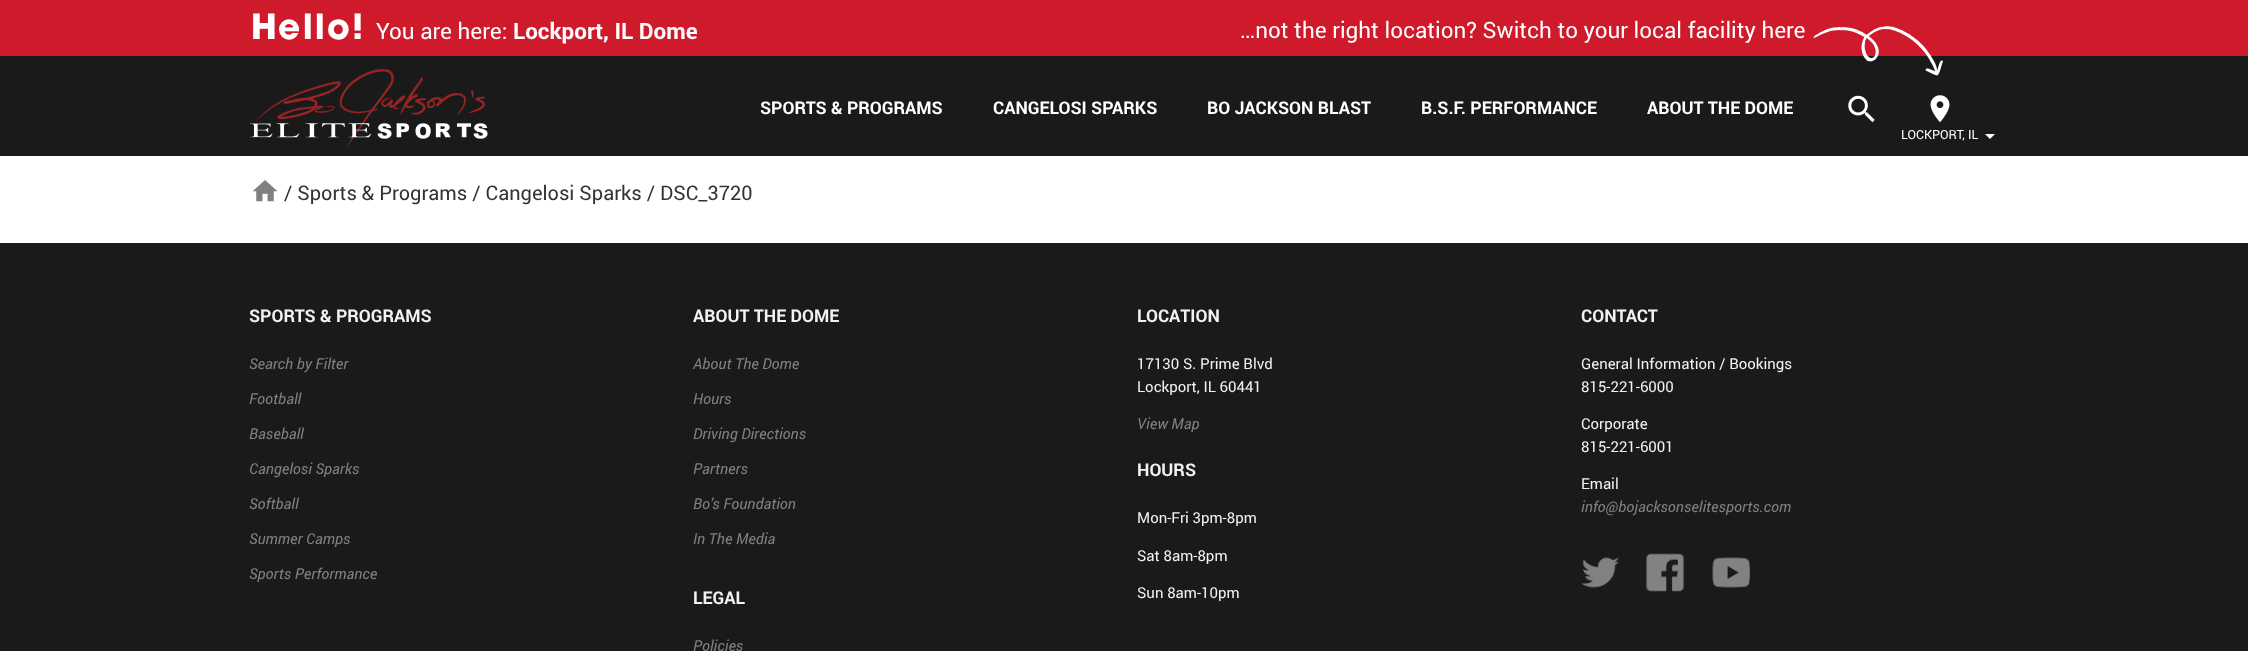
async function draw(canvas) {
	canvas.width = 2248;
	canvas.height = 651;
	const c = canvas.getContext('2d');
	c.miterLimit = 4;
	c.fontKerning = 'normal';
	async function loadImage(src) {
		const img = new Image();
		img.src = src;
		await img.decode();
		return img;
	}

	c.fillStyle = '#fff';
	c.fillRect(0, 0, 2248, 651);
	c.fillStyle = '#1a1a1a';
	c.fillRect(0, 56, 2248, 100);
	c.fillStyle = '#ce1a2b';
	c.fillRect(0, 0, 2248, 56);
	c.font = 'bold 38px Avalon';
	c.fillStyle = '#fff';
	for (const [text, x, y] of [
		['H', 251, 39],
		['e', 278, 39],
		['l', 303, 39],
		['l', 315, 39],
		['o', 327, 39],
		['!', 352, 39],
	]) {
		c.fillText(text, x, y);
	}
	c.font = '22.5px Roboto';
	c.fillText('You are here:', 376, 39);
	c.font = 'bold 22.5px Roboto';
	c.fillText('Lockport, IL Dome', 513, 39);
	c.font = '22.5px Roboto';
	c.fillText('…not the right location? Switch to your local facility here', 1240, 38);
	c.drawImage(await loadImage('img1.png'), 1813, 26, 130, 50);
	c.drawImage(await loadImage('img2.png'), 250, 68, 238, 80);
	c.font = 'bold 17.5px Roboto';
	for (const [text, x, y] of [
		['SPORTS & PROGRAMS', 760, 114],
		['CANGELOSI SPARKS', 993, 114],
		['BO JACKSON BLAST', 1207, 114],
		['B.S.F. PERFORMANCE', 1421, 114],
		['ABOUT THE DOME', 1647, 114],
	]) {
		c.fillText(text, x, y);
	}
	c.drawImage(await loadImage('img3.png'), 1848, 95, 27, 28);
	c.fillStyle = '#171717';
	c.beginPath();
	c.moveTo(1999, 145);
	c.lineTo(1880, 145);
	c.lineTo(1881, 144);
	c.lineTo(1998, 144);
	c.closePath();
	c.fill();
	c.drawImage(await loadImage('img4.png'), 1930, 95, 20, 28);
	c.font = '12.5px Roboto';
	c.fillStyle = '#fff';
	c.fillText('LOCKPORT, IL', 1901, 139);
	c.beginPath();
	c.moveTo(1985, 134);
	c.lineTo(1995, 134);
	c.lineTo(1990, 139);
	c.closePath();
	c.fill();
	c.drawImage(await loadImage('img5.png'), 252, 180, 26, 22);
	c.font = '20px Roboto';
	c.fillStyle = '#333';
	c.fillText('/ Sports & Programs / Cangelosi Sparks / DSC_3720', 284, 200);
	c.fillStyle = '#1a1a1a';
	c.fillRect(0, 243, 2248, 408);
	c.font = 'bold 17.5px Roboto';
	c.fillStyle = '#f2f2f2';
	c.fillText('SPORTS & PROGRAMS', 249, 322);
	c.font = 'italic 15px Roboto';
	c.fillStyle = '#808080';
	for (const [text, x, y] of [
		['Search by Filter', 249, 369],
		['Football', 249, 404],
		['Baseball', 249, 439],
		['Cangelosi Sparks', 249, 474],
		['Softball', 249, 509],
		['Summer Camps', 249, 544],
		['Sports Performance', 249, 579],
	]) {
		c.fillText(text, x, y);
	}
	c.font = 'bold 17.5px Roboto';
	c.fillStyle = '#f2f2f2';
	c.fillText('ABOUT THE DOME', 693, 322);
	c.font = 'italic 15px Roboto';
	c.fillStyle = '#808080';
	for (const [text, x, y] of [
		['About The Dome', 693, 369],
		['Hours', 693, 404],
		['Driving Directions', 693, 439],
		['Partners', 693, 474],
		['Bo’s Foundation', 693, 509],
		['In The Media', 693, 544],
	]) {
		c.fillText(text, x, y);
	}
	c.font = 'bold 17.5px Roboto';
	c.fillStyle = '#f2f2f2';
	c.fillText('LEGAL', 693, 604);
	c.font = 'italic 15px Roboto';
	c.fillStyle = '#808080';
	c.fillText('Policies', 693, 651);
	c.font = 'bold 17.5px Roboto';
	c.fillStyle = '#f2f2f2';
	c.fillText('LOCATION', 1137, 322);
	c.font = '15px Roboto';
	c.fillText('17130 S. Prime Blvd', 1137, 369);
	c.fillText('Lockport, IL 60441', 1137, 392);
	c.font = 'italic 15px Roboto';
	c.fillStyle = '#808080';
	c.fillText('View Map', 1137, 429);
	c.font = 'bold 17.5px Roboto';
	c.fillStyle = '#f2f2f2';
	c.fillText('HOURS', 1137, 476);
	c.font = '15px Roboto';
	for (const [text, x, y] of [
		['Mon-Fri 3pm-8pm', 1137, 523],
		['Sat 8am-8pm', 1137, 561],
		['Sun 8am-10pm', 1137, 598],
	]) {
		c.fillText(text, x, y);
	}
	c.font = 'bold 17.5px Roboto';
	c.fillText('CONTACT', 1581, 322);
	c.font = '15px Roboto';
	for (const [text, x, y] of [
		['General Information / Bookings', 1581, 369],
		['815-221-6000', 1581, 392],
		['Corporate', 1581, 429],
		['815-221-6001', 1581, 452],
		['Email', 1581, 489],
	]) {
		c.fillText(text, x, y);
	}
	c.font = 'italic 15px Roboto';
	c.fillStyle = '#808080';
	c.fillText('info@bojacksonselitesports.com', 1581, 512);
	c.drawImage(await loadImage('img6.png'), 1581, 557, 38, 31);
	c.drawImage(await loadImage('img7.png'), 1646, 553, 38, 39);
	c.drawImage(await loadImage('img8.png'), 1712, 557, 38, 31);
}

draw(document.querySelector('canvas'));
